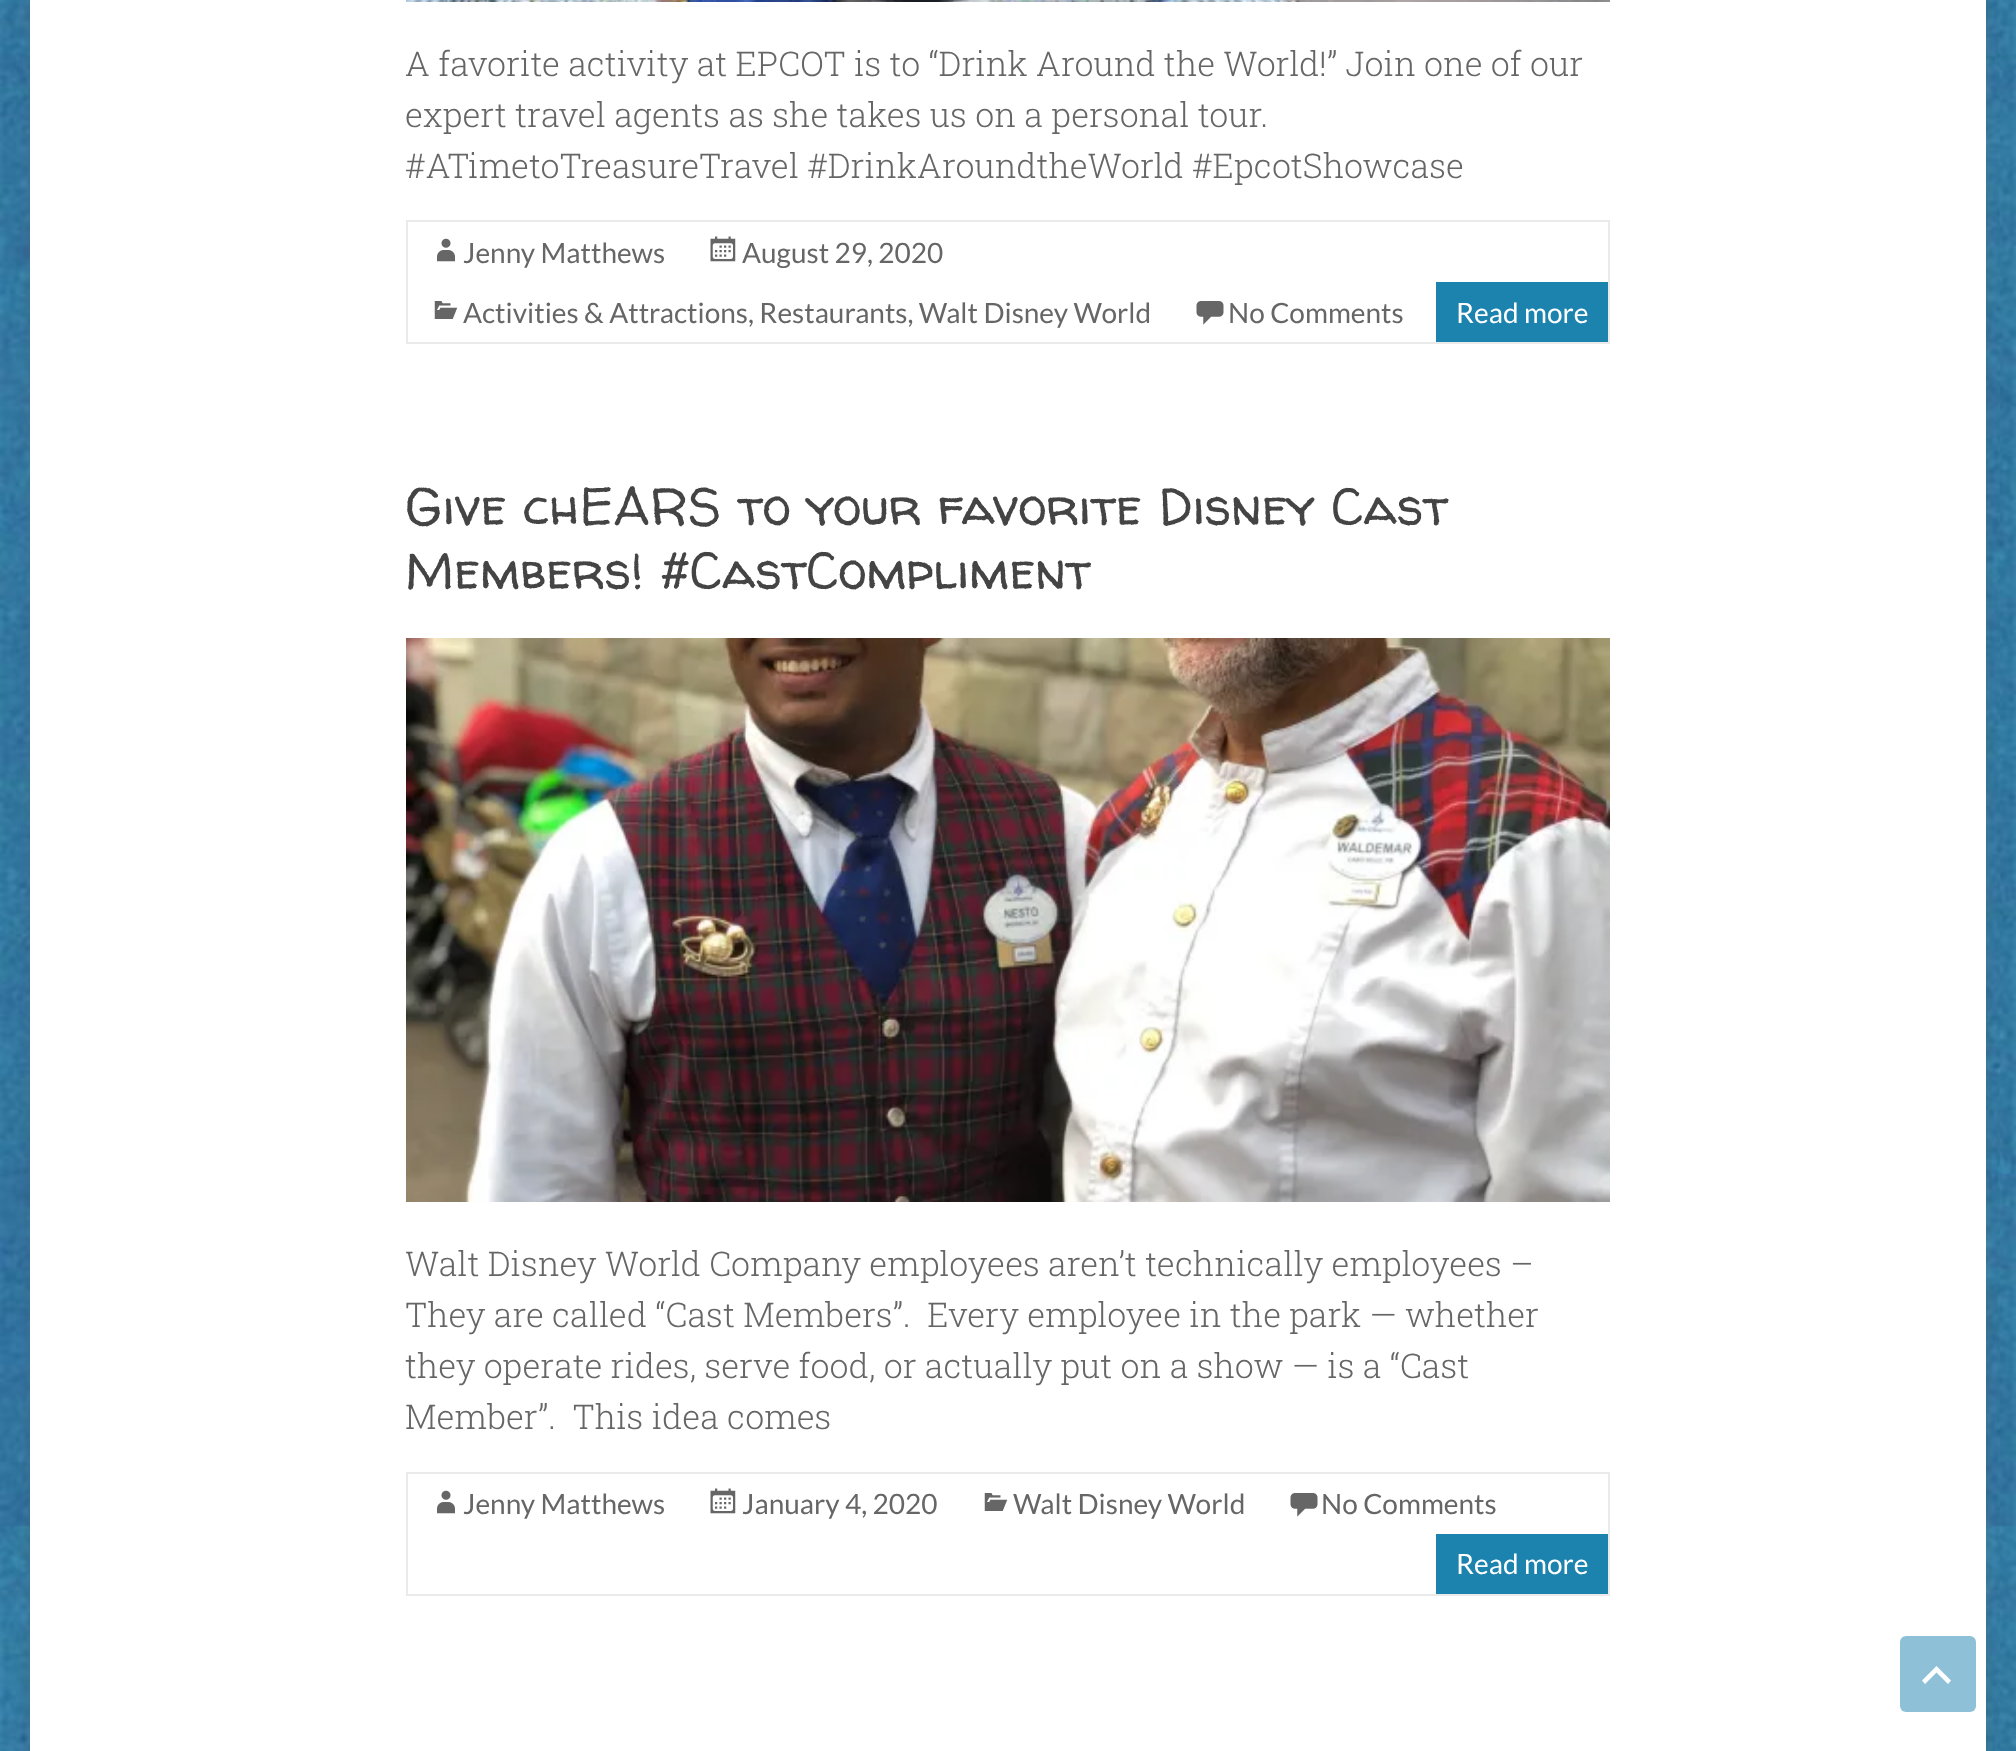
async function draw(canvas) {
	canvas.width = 2016;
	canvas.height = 1751;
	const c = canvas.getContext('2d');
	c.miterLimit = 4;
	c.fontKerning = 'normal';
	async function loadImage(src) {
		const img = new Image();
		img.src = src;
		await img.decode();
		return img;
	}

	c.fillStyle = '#fff';
	c.fillRect(0, 0, 2016, 1751);
	c.drawImage(await loadImage('img1.png'), 0, 0, 2016, 1751);
	c.fillStyle = '#6464644d';
	c.filter = 'blur(6px)';
	c.beginPath();
	c.rect(30, -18, 1956, 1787);
	c.fill();
	c.filter = 'none';
	c.fillStyle = '#fff';
	c.fillRect(30, 0, 1956, 1751);
	c.drawImage(await loadImage('img2.png'), 406, 0, 1204, 2);
	c.font = '300 34px Roboto Slab';
	c.fillStyle = '#666';
	for (const [text, x, y] of [
		['A favorite activity at EPCOT is to “Drink Around the World!” Join one of our', 405, 76],
		['expert travel agents as she takes us on a personal tour.', 405, 127],
		['#ATimetoTreasureTravel #DrinkAroundtheWorld #EpcotShowcase', 405, 178],
	]) {
		c.fillText(text, x, y);
	}
	c.strokeStyle = '#eaeaea';
	c.lineWidth = 2;
	c.strokeRect(407, 221, 1202, 122);
	c.drawImage(await loadImage('img3.png'), 437, 238, 18, 24);
	c.font = '28px Lato';
	c.fillText('Jenny Matthews', 463, 263);
	c.drawImage(await loadImage('img4.png'), 710, 236, 26, 26);
	c.fillText('August 29, 2020', 742, 263);
	c.drawImage(await loadImage('img5.png'), 434, 301, 24, 18);
	c.fillText('Activities & Attractions, Restaurants, Walt Disney World', 463, 323);
	c.drawImage(await loadImage('img6.png'), 1196, 301, 28, 24);
	c.fillText('No Comments', 1228, 323);
	c.fillStyle = '#1c83af';
	c.fillRect(1436, 282, 172, 60);
	c.fillStyle = '#fff';
	c.fillText('Read more', 1456, 323);
	c.font = '52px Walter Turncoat';
	c.fillStyle = '#444';
	c.fillText('Give chEARS to your favorite Disney Cast', 405, 525);
	c.fillText('Members! #CastCompliment', 405, 589);
	c.drawImage(await loadImage('img7.png'), 406, 638, 1204, 564);
	c.font = '300 34px Roboto Slab';
	c.fillStyle = '#666';
	for (const [text, x, y] of [
		['Walt Disney World Company employees aren’t technically employees –', 405, 1276],
		['They are called “Cast Members”.  Every employee in the park — whether', 405, 1327],
		['they operate rides, serve food, or actually put on a show — is a “Cast', 405, 1378],
		['Member”.  This idea comes', 405, 1429],
	]) {
		c.fillText(text, x, y);
	}
	c.strokeRect(407, 1473, 1202, 122);
	c.drawImage(await loadImage('img3.png'), 437, 1490, 18, 24);
	c.font = '28px Lato';
	c.fillText('Jenny Matthews', 463, 1514);
	c.drawImage(await loadImage('img4.png'), 710, 1488, 26, 26);
	c.fillText('January 4, 2020', 742, 1514);
	c.drawImage(await loadImage('img5.png'), 984, 1493, 24, 18);
	c.fillText('Walt Disney World', 1013, 1514);
	c.drawImage(await loadImage('img6.png'), 1290, 1493, 28, 24);
	c.fillText('No Comments', 1321, 1514);
	c.fillStyle = '#1c83af';
	c.fillRect(1436, 1534, 172, 60);
	c.fillStyle = '#fff';
	c.fillText('Read more', 1456, 1574);
	c.fillStyle = '#8ec1d7';
	c.beginPath();
	c.roundRect(1900, 1636, 76, 76, 6);
	c.fill();
	c.fillStyle = '#fff';
	c.beginPath();
	c.moveTo(1948, 1684);
	c.lineTo(1936.5, 1672.5);
	c.lineTo(1925, 1684);
	c.lineTo(1922, 1680.5);
	c.lineTo(1936.5, 1666);
	c.lineTo(1951, 1680.5);
	c.closePath();
	c.fill();
}

draw(document.querySelector('canvas'));
